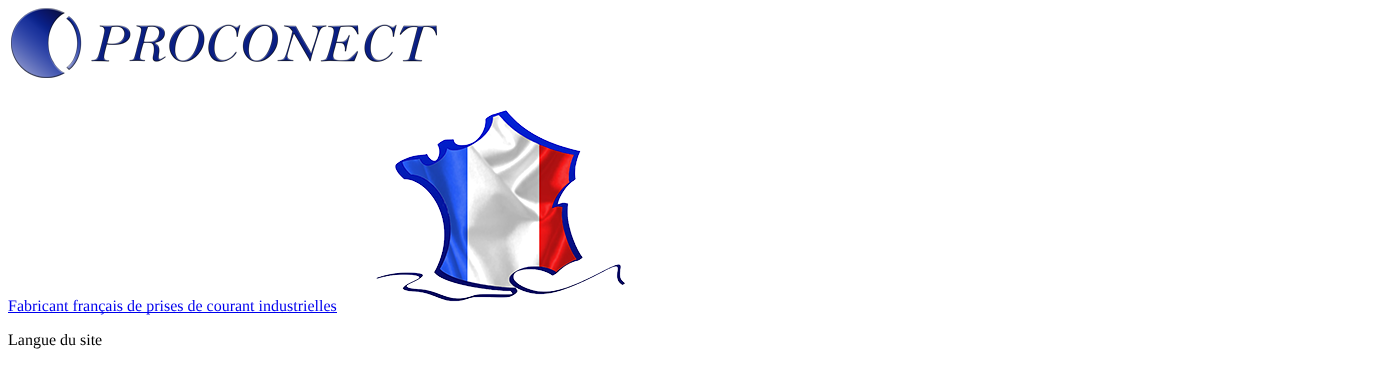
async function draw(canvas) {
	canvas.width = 1375;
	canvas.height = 367;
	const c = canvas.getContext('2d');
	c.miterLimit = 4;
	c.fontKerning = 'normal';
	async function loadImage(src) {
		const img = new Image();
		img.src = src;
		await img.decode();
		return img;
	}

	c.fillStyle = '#fff';
	c.fillRect(0, 0, 1375, 367);
	c.drawImage(await loadImage('img1.png'), 11, 8, 426, 70);
	c.drawImage(await loadImage('img2.png'), 376, 110, 249, 192);
	c.fillStyle = '#00e';
	c.fillRect(8, 312, 329, 1);
	c.font = '16px Liberation Serif';
	c.fillText('Fabricant français de prises de courant industrielles', 8, 311);
	c.fillStyle = '#000';
	c.fillText('Langue du site', 8, 345);
}

draw(document.querySelector('canvas'));
